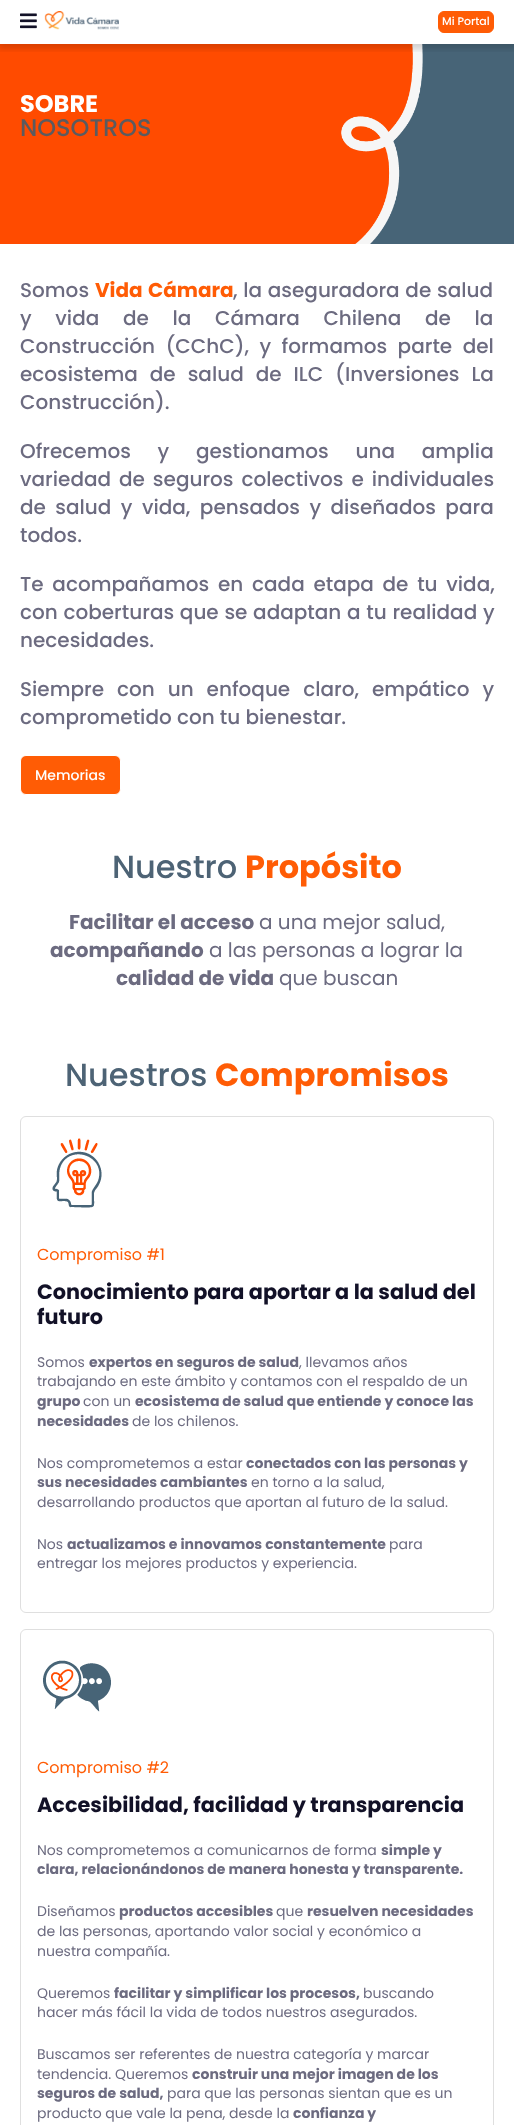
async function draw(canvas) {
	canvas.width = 514;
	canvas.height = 2125;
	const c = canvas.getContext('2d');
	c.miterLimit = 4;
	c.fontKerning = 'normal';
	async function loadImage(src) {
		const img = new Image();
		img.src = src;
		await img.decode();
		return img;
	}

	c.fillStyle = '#fff';
	c.fillRect(0, 0, 514, 2125);
	c.drawImage(await loadImage('img3.png'), 0, 44, 514, 200);
	c.save();
	c.beginPath();
	c.rect(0, 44, 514, 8);
	c.clip();
	c.fillStyle = '#00000026';
	c.filter = 'blur(3px)';
	c.beginPath();
	c.rect(-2, 1, 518, 48);
	c.fill();
	c.filter = 'none';
	c.restore();
	c.drawImage(await loadImage('img1.png'), 20, 13, 17, 16);
	c.drawImage(await loadImage('img2.png'), 44, 11, 75, 19);
	c.fillStyle = '#ff5c05';
	c.beginPath();
	c.roundRect(438.5, 11.5, 55, 21, 5.5);
	c.fill();
	c.strokeStyle = '#ff5c05';
	c.stroke();
	c.font = '500 11px Poppins';
	c.fillStyle = '#fff';
	c.fillText('Mi Portal', 442, 25);
	c.font = 'bold 24px Poppins';
	c.fillText('SOBRE', 20, 112);
	c.font = '500 24px Poppins';
	c.fillStyle = '#5b5b5f';
	c.fillText('NOSOTROS', 20, 136);
	c.font = '500 20px Poppins';
	c.fillStyle = '#6c6b80';
	c.fillText('Somos', 20, 297);
	c.wordSpacing = '1px';
	c.font = 'bold 20px Poppins';
	c.fillStyle = '#ff5c05';
	c.fillText('Vida Cámara', 95, 297);
	c.wordSpacing = '0.5px';
	c.font = '500 20px Poppins';
	c.fillStyle = '#6c6b80';
	c.fillText(', la aseguradora de salud', 233, 297);
	c.wordSpacing = '18.5px';
	c.fillText('y vida de la Cámara Chilena de la', 20, 325);
	c.wordSpacing = '5.25px';
	c.fillText('Construcción (CChC), y formamos parte del', 20, 353);
	c.wordSpacing = '6.75px';
	c.fillText('ecosistema de salud de ILC (Inversiones La', 20, 381);
	c.wordSpacing = '0px';
	c.fillText('Construcción).', 20, 409);
	c.wordSpacing = '21.5px';
	c.fillText('Ofrecemos y gestionamos una amplia', 20, 458);
	c.wordSpacing = '2.75px';
	c.fillText('variedad de seguros colectivos e individuales', 20, 486);
	c.wordSpacing = '4.25px';
	c.fillText('de salud y vida, pensados y diseñados para', 20, 514);
	c.wordSpacing = '0px';
	c.fillText('todos.', 20, 542);
	c.wordSpacing = '3.5px';
	c.fillText('Te acompañamos en cada etapa de tu vida,', 20, 591);
	c.wordSpacing = '0.5px';
	c.fillText('con coberturas que se adaptan a tu realidad y', 20, 619);
	c.wordSpacing = '0px';
	c.fillText('necesidades.', 20, 647);
	c.wordSpacing = '7.75px';
	c.fillText('Siempre con un enfoque claro, empático y', 20, 696);
	c.wordSpacing = '0px';
	c.fillText('comprometido con tu bienestar.', 20, 724);
	c.fillStyle = '#ff5c05';
	c.beginPath();
	c.roundRect(20.5, 755.5, 100, 39, 5.5);
	c.fill();
	c.strokeStyle = '#fff';
	c.stroke();
	c.font = '500 14px Poppins';
	c.fillStyle = '#fff';
	c.fillText('Memorias', 35, 780);
	c.font = '500 32px Poppins';
	c.fillStyle = '#4d6375';
	c.fillText('Nuestro', 112, 878);
	c.font = 'bold 32px Poppins';
	c.fillStyle = '#ff5c05';
	c.fillText('Propósito', 245, 878);
	c.font = 'bold 20px Poppins';
	c.fillStyle = '#6c6b80';
	c.fillText('Facilitar el acceso', 69, 929);
	c.font = '20px Poppins';
	c.fillText('a una mejor salud,', 259, 929);
	c.font = 'bold 20px Poppins';
	c.fillText('acompañando', 50, 957);
	c.font = '20px Poppins';
	c.fillText('a las personas a lograr la', 209, 957);
	c.font = 'bold 20px Poppins';
	c.fillText('calidad de vida', 116, 985);
	c.font = '20px Poppins';
	c.fillText('que buscan', 279, 985);
	c.font = '500 32px Poppins';
	c.fillStyle = '#4d6375';
	c.fillText('Nuestros', 65, 1086);
	c.font = 'bold 32px Poppins';
	c.fillStyle = '#ff5c05';
	c.fillText('Compromisos', 215, 1086);
	c.beginPath();
	c.roundRect(20.5, 1116.5, 473, 496, 5.5);
	c.strokeStyle = '#dfdfdf';
	c.stroke();
	c.drawImage(await loadImage('img4.png'), 52, 1138, 50, 70);
	c.font = '16px Poppins';
	c.fillText('Compromiso #1', 37, 1260);
	c.font = 'bold 20.8px Poppins';
	c.fillStyle = '#121127';
	c.fillText('Conocimiento para aportar a la salud del', 37, 1299);
	c.fillText('futuro', 37, 1324);
	c.font = '14px Poppins';
	c.fillStyle = '#6c6b80';
	c.fillText('Somos', 37, 1367);
	c.font = 'bold 14px Poppins';
	c.fillText('expertos en seguros de salud', 89, 1367);
	c.font = '14px Poppins';
	c.fillText(', llevamos años', 299, 1367);
	c.fillText('trabajando en este ámbito y contamos con el respaldo de un', 37, 1386);
	c.font = 'bold 14px Poppins';
	c.fillText('grupo', 37, 1406);
	c.font = '14px Poppins';
	c.fillText('con un', 83, 1406);
	c.font = 'bold 14px Poppins';
	c.fillText('ecosistema de salud que entiende y conoce las', 135, 1406);
	c.fillText('necesidades', 37, 1426);
	c.font = '14px Poppins';
	c.fillText('de los chilenos.', 132, 1426);
	c.fillText('Nos comprometemos a estar', 37, 1468);
	c.font = 'bold 14px Poppins';
	c.fillText('conectados con las personas y', 246, 1468);
	c.fillText('sus necesidades cambiantes', 37, 1487);
	c.font = '14px Poppins';
	for (const [text, x, y] of [
		['en torno a la salud,', 251, 1487],
		['desarrollando productos que aportan al futuro de la salud.', 37, 1507],
		['Nos', 37, 1549],
	]) {
		c.fillText(text, x, y);
	}
	c.font = 'bold 14px Poppins';
	c.fillText('actualizamos e innovamos constantemente', 67, 1549);
	c.font = '14px Poppins';
	c.fillText('para', 389, 1549);
	c.fillText('entregar los mejores productos y experiencia.', 37, 1568);
	c.beginPath();
	c.roundRect(20.5, 1629.5, 473, 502, 5.5);
	c.stroke();
	c.drawImage(await loadImage('img5.png'), 43, 1660, 68, 52);
	c.font = '16px Poppins';
	c.fillStyle = '#ff5c05';
	c.fillText('Compromiso #2', 37, 1773);
	c.font = 'bold 20.8px Poppins';
	c.fillStyle = '#121127';
	c.fillText('Accesibilidad, facilidad y transparencia', 37, 1812);
	c.font = '14px Poppins';
	c.fillStyle = '#6c6b80';
	c.fillText('Nos comprometemos a comunicarnos de forma', 37, 1855);
	c.font = 'bold 14px Poppins';
	c.fillText('simple y', 381, 1855);
	c.fillText('clara, relacionándonos de manera honesta y transparente.', 37, 1874);
	c.font = '14px Poppins';
	c.fillText('Diseñamos', 37, 1916);
	c.font = 'bold 14px Poppins';
	c.fillText('productos accesibles', 119, 1916);
	c.font = '14px Poppins';
	c.fillText('que', 276, 1916);
	c.font = 'bold 14px Poppins';
	c.fillText('resuelven necesidades', 307, 1916);
	c.font = '14px Poppins';
	for (const [text, x, y] of [
		['de las personas, aportando valor social y económico a', 37, 1936],
		['nuestra compañía.', 37, 1956],
		['Queremos', 37, 1998],
	]) {
		c.fillText(text, x, y);
	}
	c.font = 'bold 14px Poppins';
	c.fillText('facilitar y simplificar los procesos,', 114, 1998);
	c.font = '14px Poppins';
	for (const [text, x, y] of [
		['buscando', 363, 1998],
		['hacer más fácil la vida de todos nuestros asegurados.', 37, 2017],
		['Buscamos ser referentes de nuestra categoría y marcar', 37, 2059],
		['tendencia. Queremos', 37, 2079],
	]) {
		c.fillText(text, x, y);
	}
	c.font = 'bold 14px Poppins';
	c.fillText('construir una mejor imagen de los', 192, 2079);
	c.fillText('seguros de salud,', 37, 2098);
	c.font = '14px Poppins';
	c.fillText('para que las personas sientan que es un', 167, 2098);
	c.fillText('producto que vale la pena, desde la', 37, 2118);
	c.font = 'bold 14px Poppins';
	c.fillText('confianza y', 293, 2118);
}

draw(document.querySelector('canvas'));
